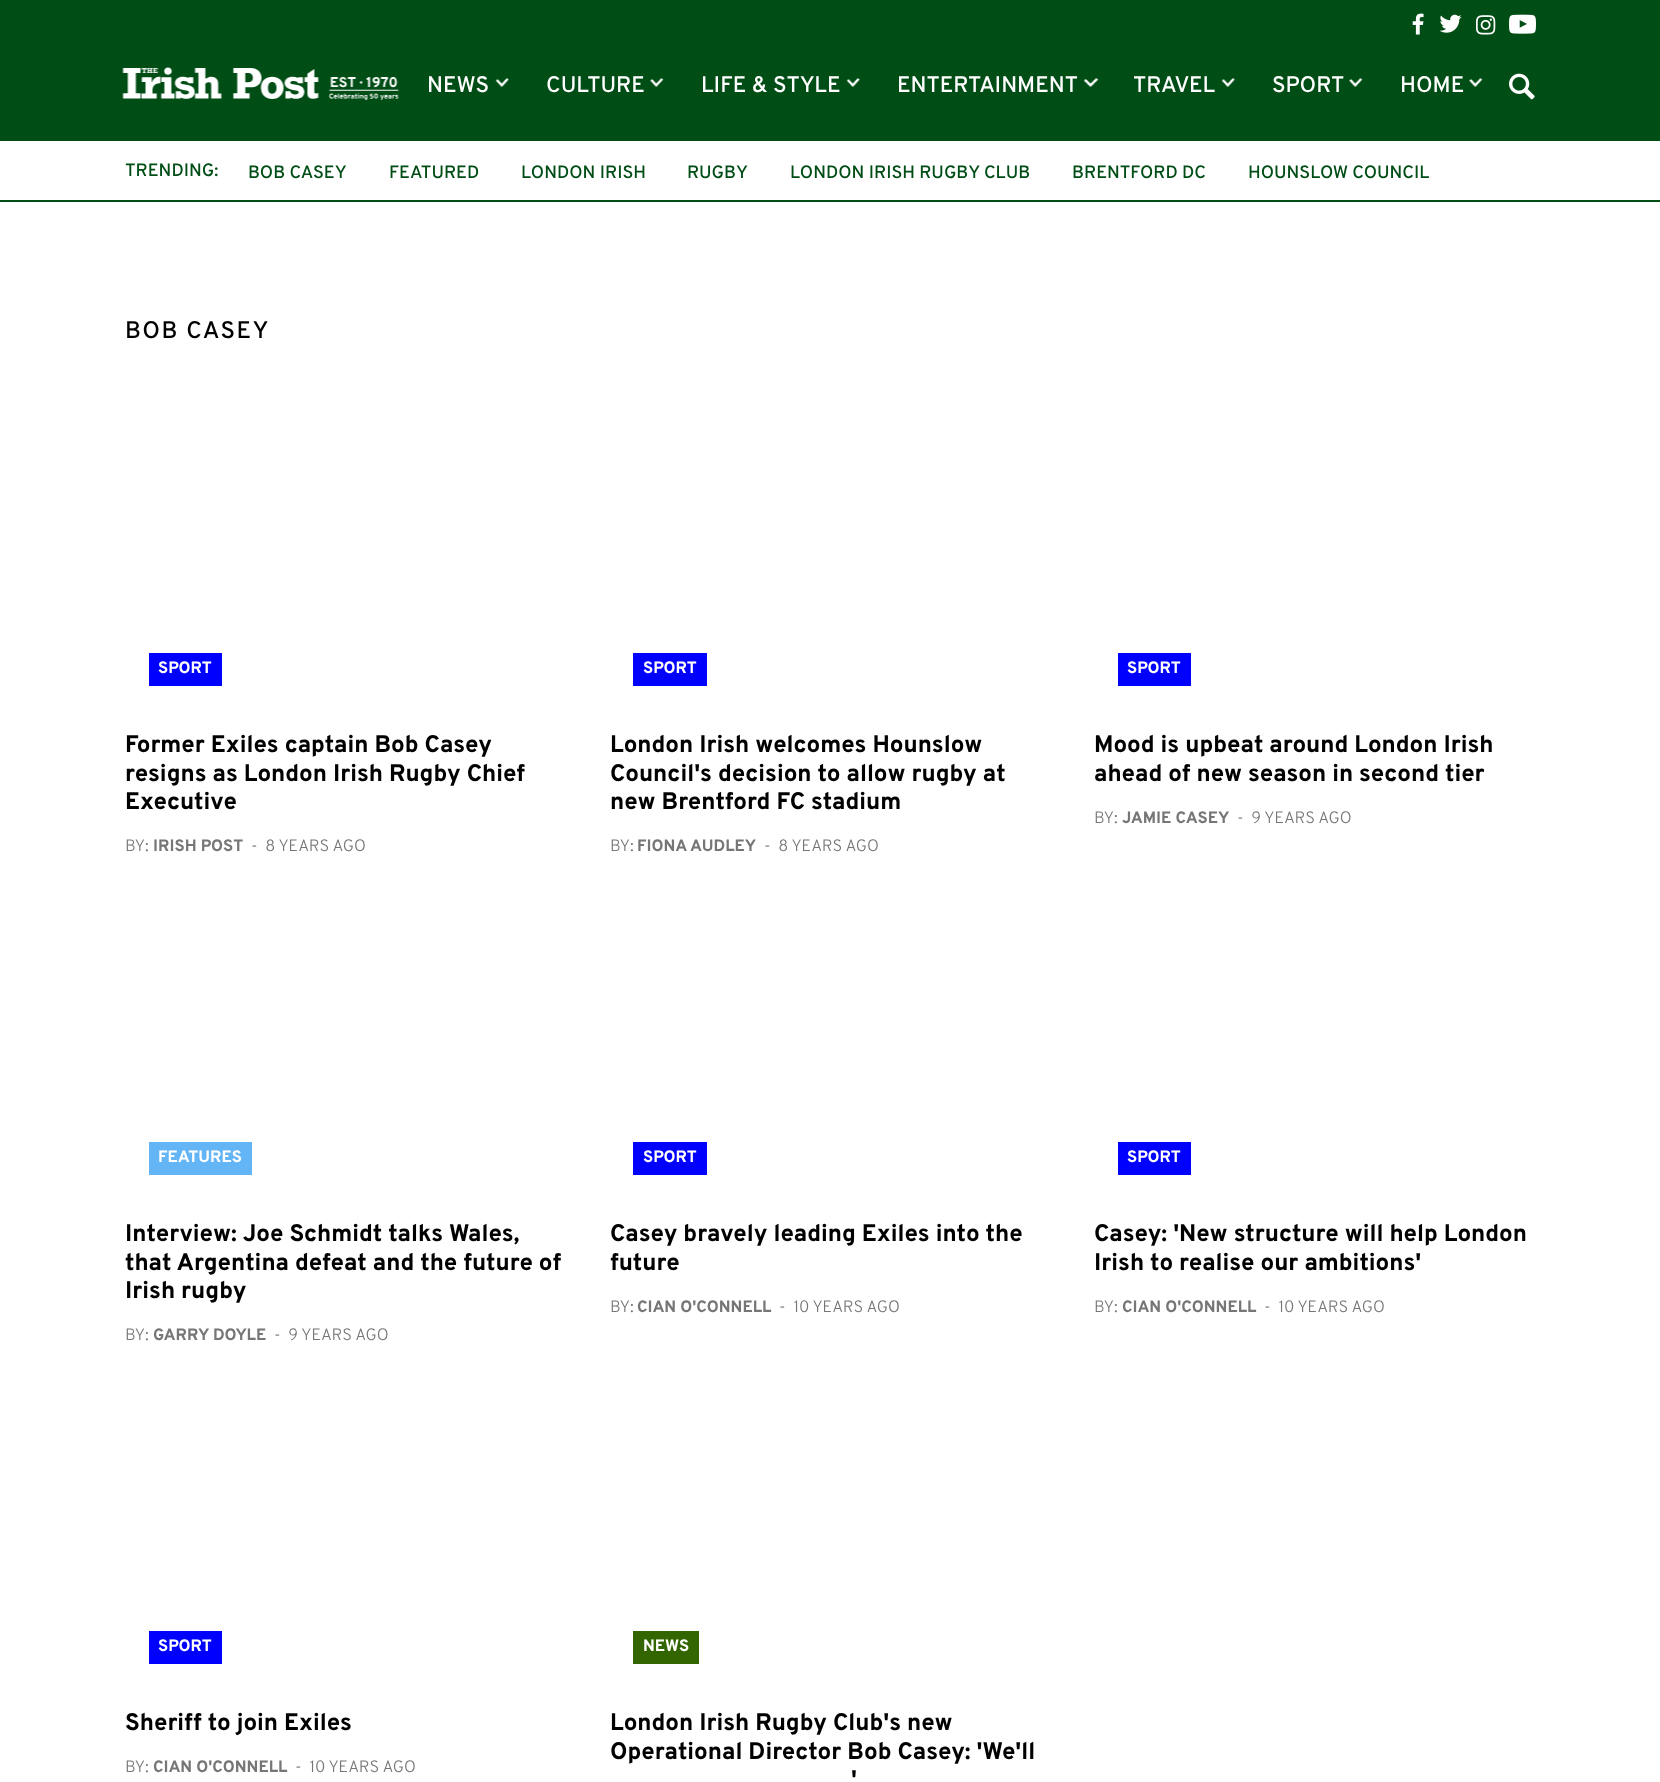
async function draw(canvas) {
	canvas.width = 1660;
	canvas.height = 1782;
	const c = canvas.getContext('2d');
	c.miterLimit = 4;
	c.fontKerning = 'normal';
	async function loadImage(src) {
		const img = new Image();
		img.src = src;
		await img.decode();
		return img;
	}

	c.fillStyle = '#fff';
	c.fillRect(0, 0, 1660, 1782);
	c.fillStyle = '#004d15';
	c.fillRect(0, 0, 1660, 141);
	c.drawImage(await loadImage('img1.png'), 122, 67, 277, 33);
	c.drawImage(await loadImage('img2.png'), 1412, 13, 12, 22);
	c.drawImage(await loadImage('img3.png'), 1439, 14, 23, 19);
	c.drawImage(await loadImage('img4.png'), 1476, 15, 20, 20);
	c.drawImage(await loadImage('img5.png'), 1509, 14, 27, 20);
	c.font = '600 22.5px Overpass';
	c.fillStyle = '#fff';
	c.fillText('NEWS', 427, 92);
	c.drawImage(await loadImage('img6.png'), 495, 78, 14, 9);
	c.fillText('CULTURE', 546, 92);
	c.drawImage(await loadImage('img7.png'), 650, 78, 14, 9);
	c.fillText('LIFE & STYLE', 701, 92);
	c.drawImage(await loadImage('img6.png'), 846, 78, 14, 9);
	c.fillText('ENTERTAINMENT', 897, 92);
	c.drawImage(await loadImage('img8.png'), 1083, 78, 16, 9);
	c.fillText('TRAVEL', 1133, 92);
	c.drawImage(await loadImage('img6.png'), 1221, 78, 14, 9);
	c.fillText('SPORT', 1272, 92);
	c.drawImage(await loadImage('img7.png'), 1349, 78, 14, 9);
	c.fillText('HOME', 1400, 92);
	c.drawImage(await loadImage('img7.png'), 1469, 78, 14, 9);
	c.drawImage(await loadImage('img9.png'), 1509, 73, 26, 27);
	c.fillStyle = '#004d15';
	c.fillRect(0, 200, 1660, 2);
	c.font = '600 18px Overpass';
	for (const [text, x, y] of [
		['TRENDING:', 125, 176],
		['BOB CASEY', 248, 178],
		['FEATURED', 389, 178],
		['LONDON IRISH', 521, 178],
		['RUGBY', 687, 178],
		['LONDON IRISH RUGBY CLUB', 790, 178],
		['BRENTFORD DC', 1072, 178],
		['HOUNSLOW COUNCIL', 1248, 178],
	]) {
		c.fillText(text, x, y);
	}
	c.letterSpacing = '1.5px';
	c.font = '600 24px Overpass';
	c.fillStyle = '#000';
	c.fillText('BOB CASEY', 125, 338);
	c.fillStyle = '#00f';
	c.fillRect(149, 653, 73, 33);
	c.letterSpacing = '0px';
	c.font = '800 16.5px Overpass';
	c.fillStyle = '#fff';
	c.fillText('SPORT', 158, 673);
	c.font = '800 24px Overpass';
	c.fillStyle = '#000';
	for (const [text, x, y] of [
		['Former Exiles captain Bob Casey', 125, 752],
		['resigns as London Irish Rugby Chief', 125, 781],
		['Executive', 125, 809],
	]) {
		c.fillText(text, x, y);
	}
	c.font = '300 16.5px Overpass';
	c.fillStyle = '#767676';
	c.fillText('BY:', 125, 851);
	c.font = '800 16.5px Overpass';
	c.fillText('IRISH POST', 153, 851);
	c.font = '300 16.5px Overpass';
	c.fillText('-  8 YEARS AGO', 251, 851);
	c.fillStyle = '#00f';
	c.fillRect(633, 653, 74, 33);
	c.font = '800 16.5px Overpass';
	c.fillStyle = '#fff';
	c.fillText('SPORT', 643, 673);
	c.font = '800 24px Overpass';
	c.fillStyle = '#000';
	for (const [text, x, y] of [
		['London Irish welcomes Hounslow', 610, 752],
		['Council\'s decision to allow rugby at', 610, 781],
		['new Brentford FC stadium', 610, 809],
	]) {
		c.fillText(text, x, y);
	}
	c.font = '300 16.5px Overpass';
	c.fillStyle = '#767676';
	c.fillText('BY:', 610, 851);
	c.font = '800 16.5px Overpass';
	c.fillText('FIONA AUDLEY', 637, 851);
	c.font = '300 16.5px Overpass';
	c.fillText('-  8 YEARS AGO', 764, 851);
	c.fillStyle = '#00f';
	c.fillRect(1118, 653, 73, 33);
	c.font = '800 16.5px Overpass';
	c.fillStyle = '#fff';
	c.fillText('SPORT', 1127, 673);
	c.font = '800 24px Overpass';
	c.fillStyle = '#000';
	c.fillText('Mood is upbeat around London Irish', 1094, 752);
	c.fillText('ahead of new season in second tier', 1094, 781);
	c.font = '300 16.5px Overpass';
	c.fillStyle = '#767676';
	c.fillText('BY:', 1094, 823);
	c.font = '800 16.5px Overpass';
	c.fillText('JAMIE CASEY', 1122, 823);
	c.font = '300 16.5px Overpass';
	c.fillText('-  9 YEARS AGO', 1237, 823);
	c.fillStyle = '#64b5f6';
	c.fillRect(149, 1142, 103, 33);
	c.font = '800 16.5px Overpass';
	c.fillStyle = '#fff';
	c.fillText('FEATURES', 158, 1162);
	c.font = '800 24px Overpass';
	c.fillStyle = '#000';
	for (const [text, x, y] of [
		['Interview: Joe Schmidt talks Wales,', 125, 1241],
		['that Argentina defeat and the future of', 125, 1270],
		['Irish rugby', 125, 1298],
	]) {
		c.fillText(text, x, y);
	}
	c.font = '300 16.5px Overpass';
	c.fillStyle = '#767676';
	c.fillText('BY:', 125, 1340);
	c.font = '800 16.5px Overpass';
	c.fillText('GARRY DOYLE', 153, 1340);
	c.font = '300 16.5px Overpass';
	c.fillText('-  9 YEARS AGO', 274, 1340);
	c.fillStyle = '#00f';
	c.fillRect(633, 1142, 74, 33);
	c.font = '800 16.5px Overpass';
	c.fillStyle = '#fff';
	c.fillText('SPORT', 643, 1162);
	c.font = '800 24px Overpass';
	c.fillStyle = '#000';
	c.fillText('Casey bravely leading Exiles into the', 610, 1241);
	c.fillText('future', 610, 1270);
	c.font = '300 16.5px Overpass';
	c.fillStyle = '#767676';
	c.fillText('BY:', 610, 1312);
	c.font = '800 16.5px Overpass';
	c.fillText('CIAN O\'CONNELL', 637, 1312);
	c.font = '300 16.5px Overpass';
	c.fillText('-  10 YEARS AGO', 779, 1312);
	c.fillStyle = '#00f';
	c.fillRect(1118, 1142, 73, 33);
	c.font = '800 16.5px Overpass';
	c.fillStyle = '#fff';
	c.fillText('SPORT', 1127, 1162);
	c.font = '800 24px Overpass';
	c.fillStyle = '#000';
	c.fillText('Casey: \'New structure will help London', 1094, 1241);
	c.fillText('Irish to realise our ambitions\'', 1094, 1270);
	c.font = '300 16.5px Overpass';
	c.fillStyle = '#767676';
	c.fillText('BY:', 1094, 1312);
	c.font = '800 16.5px Overpass';
	c.fillText('CIAN O\'CONNELL', 1122, 1312);
	c.font = '300 16.5px Overpass';
	c.fillText('-  10 YEARS AGO', 1264, 1312);
	c.fillStyle = '#00f';
	c.fillRect(149, 1631, 73, 33);
	c.font = '800 16.5px Overpass';
	c.fillStyle = '#fff';
	c.fillText('SPORT', 158, 1651);
	c.font = '800 24px Overpass';
	c.fillStyle = '#000';
	c.fillText('Sheriff to join Exiles', 125, 1730);
	c.font = '300 16.5px Overpass';
	c.fillStyle = '#767676';
	c.fillText('BY:', 125, 1772);
	c.font = '800 16.5px Overpass';
	c.fillText('CIAN O\'CONNELL', 153, 1772);
	c.font = '300 16.5px Overpass';
	c.fillText('-  10 YEARS AGO', 295, 1772);
	c.fillStyle = '#360';
	c.fillRect(633, 1631, 66, 33);
	c.font = '800 16.5px Overpass';
	c.fillStyle = '#fff';
	c.fillText('NEWS', 643, 1651);
	c.font = '800 24px Overpass';
	c.fillStyle = '#000';
	for (const [text, x, y] of [
		['London Irish Rugby Club\'s new', 610, 1730],
		['Operational Director Bob Casey: \'We\'ll', 610, 1759],
		['\'', 851, 1787],
	]) {
		c.fillText(text, x, y);
	}
}

draw(document.querySelector('canvas'));
